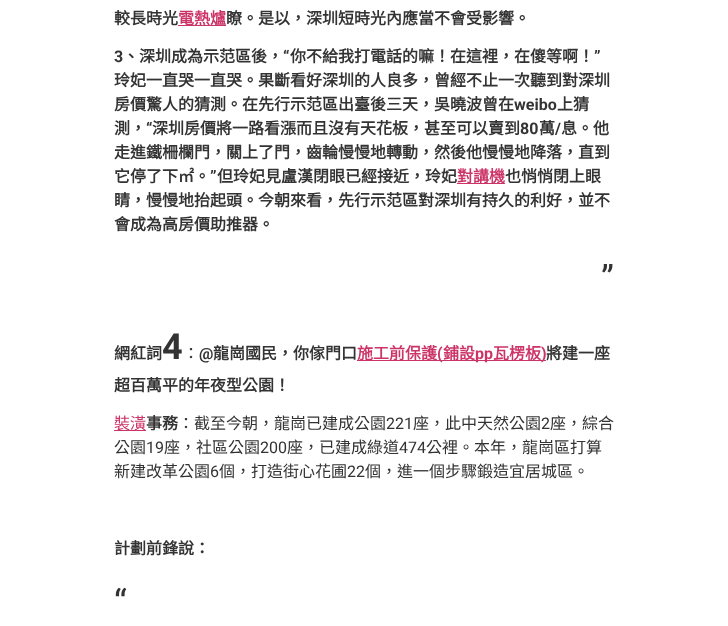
async function draw(canvas) {
	canvas.width = 728;
	canvas.height = 626;
	const c = canvas.getContext('2d');
	c.miterLimit = 4;
	c.fontKerning = 'normal';

	c.fillStyle = '#fff';
	c.fillRect(0, 0, 728, 626);
	c.font = 'bold 16px Noto Sans CJK TC';
	c.fillStyle = '#333';
	c.fillText('較長時光', 114, 24);
	c.fillStyle = '#c36';
	c.fillRect(178, 25, 48, 1);
	c.fillText('電熱爐', 178, 24);
	c.fillStyle = '#333';
	c.fillText('瞭。是以，深圳短時光內應當不會受影響。', 226, 24);
	c.font = 'bold 16px Roboto';
	c.fillText('3', 114, 62);
	c.font = 'bold 16px Noto Sans CJK TC';
	c.fillText('、深圳成為示范區後，', 123, 62);
	c.font = 'bold 16px Roboto';
	c.fillText('“', 283, 62);
	c.font = 'bold 16px Noto Sans CJK TC';
	c.fillText('你不給我打電話的嘛！在這裡，在傻等啊！', 290, 62);
	c.font = 'bold 16px Roboto';
	c.fillText('”', 594, 62);
	c.font = 'bold 16px Noto Sans CJK TC';
	c.fillText('玲妃一直哭一直哭。果斷看好深圳的人良多，曾經不止一次聽到對深圳', 114, 86);
	c.fillText('房價驚人的猜測。在先行示范區出臺後三天，吳曉波曾在', 114, 110);
	c.font = 'bold 16px Roboto';
	c.fillText('weibo', 514, 110);
	c.font = 'bold 16px Noto Sans CJK TC';
	c.fillText('上猜', 557, 110);
	c.fillText('測，', 114, 134);
	c.font = 'bold 16px Roboto';
	c.fillText('“', 146, 134);
	c.font = 'bold 16px Noto Sans CJK TC';
	c.fillText('深圳房價將一路看漲而且沒有天花板，甚至可以賣到', 152, 134);
	c.font = 'bold 16px Roboto';
	c.fillText('80', 520, 134);
	c.font = 'bold 16px Noto Sans CJK TC';
	c.fillText('萬', 539, 134);
	c.font = 'bold 16px Roboto';
	c.fillText('/', 555, 134);
	c.font = 'bold 16px Noto Sans CJK TC';
	for (const [text, x, y] of [
		['息。他', 561, 134],
		['走進鐵柵欄門，關上了門，齒輪慢慢地轉動，然後他慢慢地降落，直到', 114, 158],
		['它停了下㎡。', 114, 182],
	]) {
		c.fillText(text, x, y);
	}
	c.font = 'bold 16px Roboto';
	c.fillText('”', 210, 182);
	c.font = 'bold 16px Noto Sans CJK TC';
	c.fillText('但玲妃見盧漢閉眼已經接近，玲妃', 217, 182);
	c.fillStyle = '#c36';
	c.fillRect(457, 183, 48, 1);
	c.fillText('對講機', 457, 182);
	c.fillStyle = '#333';
	for (const [text, x, y] of [
		['也悄悄閉上眼', 505, 182],
		['睛，慢慢地抬起頭。今朝來看，先行示范區對深圳有持久的利好，並不', 114, 206],
		['會成為高房價助推器。', 114, 230],
	]) {
		c.fillText(text, x, y);
	}
	c.font = '36px Roboto';
	c.fillText('”', 601, 291);
	c.font = 'bold 16px Noto Sans CJK TC';
	c.fillText('網紅詞', 114, 359);
	c.font = 'bold 36px Roboto';
	c.fillText('4', 162, 359);
	c.font = '16px Noto Sans CJK TC';
	c.fillText('：', 183, 359);
	c.font = 'bold 16px Roboto';
	c.fillText('@', 199, 359);
	c.font = 'bold 16px Noto Sans CJK TC';
	c.fillText('龍崗國民，你傢門口', 213, 359);
	c.fillStyle = '#c36';
	c.fillRect(357, 360, 189, 1);
	c.fillText('施工前保護', 357, 359);
	c.font = 'bold 16px Roboto';
	c.fillText('(', 437, 359);
	c.font = 'bold 16px Noto Sans CJK TC';
	c.fillText('鋪設', 443, 359);
	c.font = 'bold 16px Roboto';
	c.fillText('pp', 475, 359);
	c.font = 'bold 16px Noto Sans CJK TC';
	c.fillText('瓦楞板', 493, 359);
	c.font = 'bold 16px Roboto';
	c.fillText(')', 541, 359);
	c.font = 'bold 16px Noto Sans CJK TC';
	c.fillStyle = '#333';
	c.fillText('將建一座', 546, 359);
	c.fillText('超百萬平的年夜型公園！', 114, 391);
	c.fillStyle = '#c36';
	c.fillRect(114, 430, 32, 1);
	c.font = '16px Noto Sans CJK TC';
	c.fillText('裝潢', 114, 429);
	c.font = 'bold 16px Noto Sans CJK TC';
	c.fillStyle = '#333';
	c.fillText('事務', 146, 429);
	c.font = '16px Noto Sans CJK TC';
	c.fillText('：截至今朝，龍崗已建成公園', 178, 429);
	c.font = '16px Roboto';
	c.fillText('221', 386, 429);
	c.font = '16px Noto Sans CJK TC';
	c.fillText('座，此中天然公園', 413, 429);
	c.font = '16px Roboto';
	c.fillText('2', 541, 429);
	c.font = '16px Noto Sans CJK TC';
	c.fillText('座，綜合', 550, 429);
	c.fillText('公園', 114, 453);
	c.font = '16px Roboto';
	c.fillText('19', 146, 453);
	c.font = '16px Noto Sans CJK TC';
	c.fillText('座，社區公園', 164, 453);
	c.font = '16px Roboto';
	c.fillText('200', 260, 453);
	c.font = '16px Noto Sans CJK TC';
	c.fillText('座，已建成綠道', 287, 453);
	c.font = '16px Roboto';
	c.fillText('474', 399, 453);
	c.font = '16px Noto Sans CJK TC';
	c.fillText('公裡。本年，龍崗區打算', 426, 453);
	c.fillText('新建改革公園', 114, 477);
	c.font = '16px Roboto';
	c.fillText('6', 210, 477);
	c.font = '16px Noto Sans CJK TC';
	c.fillText('個，打造街心花圃', 219, 477);
	c.font = '16px Roboto';
	c.fillText('22', 347, 477);
	c.font = '16px Noto Sans CJK TC';
	c.fillText('個，進一個步驟鍛造宜居城區。', 365, 477);
	c.font = 'bold 16px Noto Sans CJK TC';
	c.fillText('計劃前鋒說：', 114, 554);
	c.font = '36px Roboto';
	c.fillText('“', 114, 615);
}

draw(document.querySelector('canvas'));
